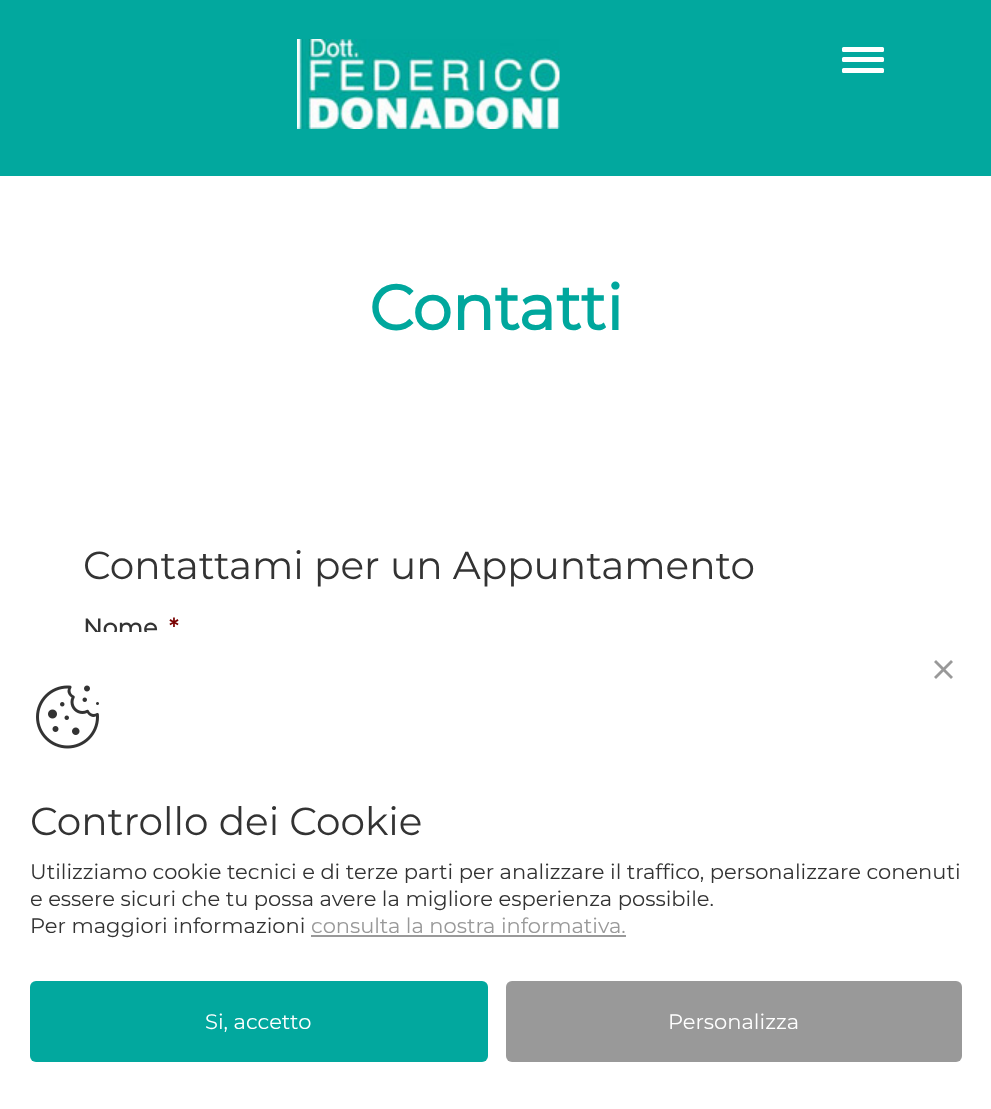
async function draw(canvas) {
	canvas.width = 991;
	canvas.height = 1109;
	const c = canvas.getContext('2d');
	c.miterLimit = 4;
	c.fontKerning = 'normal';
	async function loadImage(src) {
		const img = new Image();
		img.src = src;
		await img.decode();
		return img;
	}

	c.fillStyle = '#fff';
	c.fillRect(0, 0, 991, 1109);
	c.fillStyle = '#02a89e';
	c.fillRect(0, 0, 991, 176);
	c.drawImage(await loadImage('img1.png'), 297, 39, 263, 90);
	c.fillStyle = '#fff';
	c.beginPath();
	c.roundRect(842, 47, 42, 5, 1.5);
	c.fill();
	c.beginPath();
	c.roundRect(842, 57, 42, 5, 1.5);
	c.fill();
	c.beginPath();
	c.roundRect(842, 68, 42, 5, 1.5);
	c.fill();
	c.font = 'bold 63px Montserrat';
	c.fillStyle = '#00a79d';
	c.fillText('Contatti', 369, 330);
	c.font = '100 39px Montserrat';
	c.fillStyle = '#333';
	c.fillText('Contattami per un Appuntamento', 83, 579);
	c.font = 'bold 24px Montserrat';
	c.fillText('Nome', 83, 636);
	c.fillStyle = '#790000';
	c.fillText('*', 169, 636);
	c.fillStyle = '#fff';
	c.beginPath();
	c.moveTo(18, 632);
	c.lineTo(974, 632);
	c.bezierCurveTo(984, 632, 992, 640, 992, 650);
	c.lineTo(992, 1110);
	c.lineTo(0, 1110);
	c.lineTo(0, 650);
	c.bezierCurveTo(0, 640, 8, 632, 18, 632);
	c.closePath();
	c.fill();
	c.fillStyle = '#999';
	c.beginPath();
	c.moveTo(936, 660);
	c.lineTo(953, 677);
	c.lineTo(951, 679);
	c.lineTo(934, 662);
	c.closePath();
	c.fill();
	c.beginPath();
	c.moveTo(934, 677);
	c.lineTo(951, 660);
	c.lineTo(953, 662);
	c.lineTo(936, 679);
	c.closePath();
	c.fill();
	c.drawImage(await loadImage('img2.png'), 36, 685, 63, 64);
	c.font = '100 39px Montserrat';
	c.fillStyle = '#333';
	c.fillText('Controllo dei Cookie', 30, 835);
	c.font = '100 21px Montserrat';
	for (const [text, x, y] of [
		['Utilizziamo cookie tecnici e di terze parti per analizzare il traffico, personalizzare conenuti', 30, 879],
		['e essere sicuri che tu possa avere la migliore esperienza possibile.', 30, 906],
		['Per maggiori informazioni', 30, 933],
	]) {
		c.fillText(text, x, y);
	}
	c.fillStyle = '#999';
	c.fillText('consulta la nostra informativa.', 311, 933);
	c.fillRect(311, 935, 315, 2);
	c.fillStyle = '#02a89e';
	c.beginPath();
	c.roundRect(30, 981, 458, 81, 6);
	c.fill();
	c.fillStyle = '#fff';
	c.fillText('Si, accetto', 205, 1029);
	c.fillStyle = '#999';
	c.beginPath();
	c.roundRect(506, 981, 456, 81, 6);
	c.fill();
	c.fillStyle = '#fff';
	c.fillText('Personalizza', 668, 1029);
}

draw(document.querySelector('canvas'));
